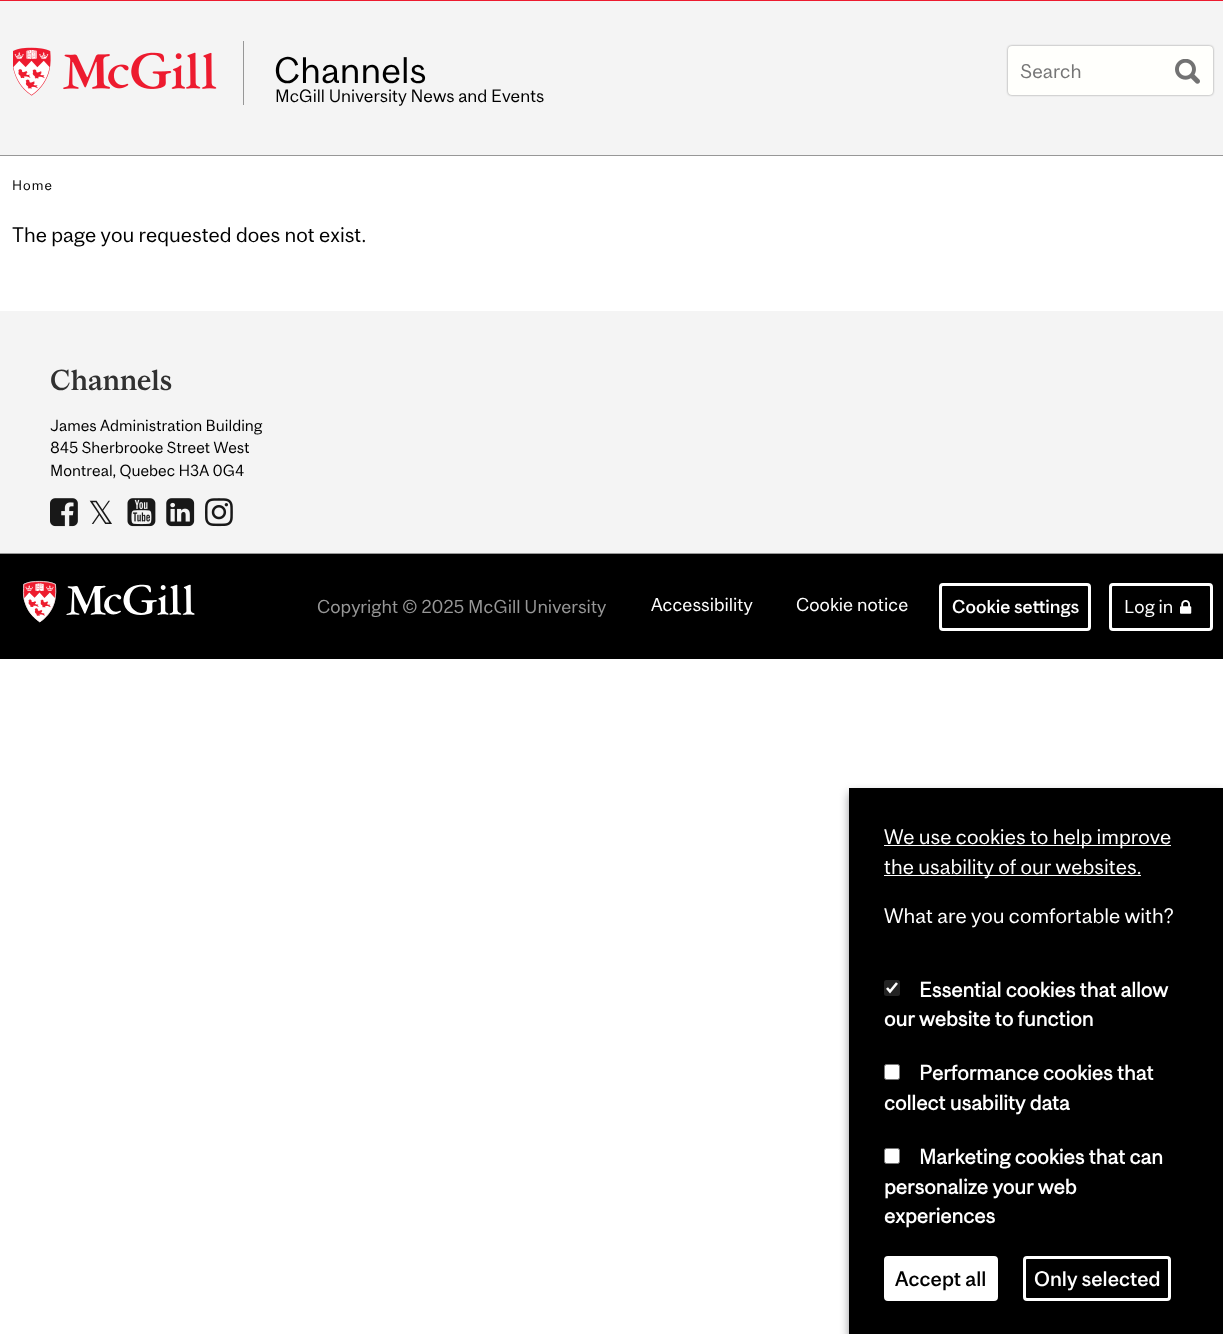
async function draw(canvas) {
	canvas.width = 1223;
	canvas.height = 1334;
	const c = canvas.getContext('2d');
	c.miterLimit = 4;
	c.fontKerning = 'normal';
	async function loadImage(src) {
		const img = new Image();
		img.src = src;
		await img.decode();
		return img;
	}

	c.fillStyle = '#fff';
	c.fillRect(0, 0, 1223, 1334);
	for (const [x, y, w, h, color] of [
		[0, 1, 1223, 154, '#f4f4f4'],
		[0, 0, 1223, 1, '#ed1b2f'],
		[0, 155, 1223, 1, '#979797'],
	]) {
		c.fillStyle = color;
		c.fillRect(x, y, w, h);
	}
	c.drawImage(await loadImage('img1.png'), 13, 47, 204, 49);
	c.fillRect(243, 41, 1, 64);
	c.font = '34.5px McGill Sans';
	c.fillStyle = '#000';
	c.fillText('Channels', 274, 83);
	c.font = '16.7px McGill Sans';
	c.fillText('McGill University News and Events', 275, 102);
	c.fillStyle = '#00000066';
	c.filter = 'blur(1px)';
	c.beginPath();
	c.roundRect(1008, 46, 205, 49, 4);
	c.fill();
	c.filter = 'none';
	c.fillStyle = '#fffffc';
	c.beginPath();
	c.roundRect(1008, 46, 205, 49, 4);
	c.fill();
	c.font = '18.5px McGill Sans';
	c.fillStyle = '#757575';
	c.fillText('Search', 1020, 78);
	c.drawImage(await loadImage('img2.png'), 1175, 59, 25, 25);
	c.letterSpacing = '1px';
	c.font = '13px McGill Sans';
	c.fillStyle = '#000';
	c.fillText('Home', 12, 190);
	c.letterSpacing = '0px';
	c.font = '19.6px McGill Sans';
	c.fillText('The page you requested does not exist.', 12, 242);
	c.fillStyle = '#f4f4f4';
	c.fillRect(0, 311, 1223, 242);
	c.font = '500 27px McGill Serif';
	c.fillStyle = '#313131';
	c.fillText('Channels', 50, 390);
	c.font = '15px McGill Sans';
	c.fillStyle = '#000';
	for (const [text, x, y] of [
		['James Administration Building', 50, 431],
		['845 Sherbrooke Street West', 50, 453],
		['Montreal, Quebec H3A 0G4', 50, 476],
	]) {
		c.fillText(text, x, y);
	}
	c.drawImage(await loadImage('img3.png'), 50, 498, 28, 29);
	c.font = '32px DejaVu Sans';
	c.fillStyle = '#181818';
	c.fillText('𝕏', 88, 524);
	c.drawImage(await loadImage('img4.png'), 127, 498, 29, 29);
	c.drawImage(await loadImage('img5.png'), 166, 498, 29, 29);
	c.drawImage(await loadImage('img6.png'), 205, 498, 28, 29);
	c.fillStyle = '#000';
	c.fillRect(0, 554, 1223, 105);
	c.fillStyle = '#979797';
	c.fillRect(0, 553, 1223, 1);
	c.drawImage(await loadImage('img7.png'), 22, 580, 173, 43);
	c.font = '17.5px McGill Sans';
	c.fillText('Copyright © 2025 McGill University', 317, 613);
	c.fillStyle = '#fff';
	c.fillText('Accessibility', 651, 611);
	c.fillText('Cookie notice', 796, 611);
	c.beginPath();
	c.roundRect(940.5, 584.5, 149, 45, 2.5);
	c.strokeStyle = '#fff';
	c.lineWidth = 3;
	c.stroke();
	c.font = '500 17.5px McGill Sans';
	c.fillText('Cookie settings', 952, 613);
	c.beginPath();
	c.roundRect(1110.5, 584.5, 101, 45, 2.5);
	c.stroke();
	c.font = '17.5px McGill Sans';
	c.fillText('Log in', 1124, 613);
	c.drawImage(await loadImage('img8.png'), 1180, 600, 12, 14);
	c.fillStyle = '#979799';
	c.filter = 'blur(5px)';
	c.beginPath();
	c.rect(849, 793, 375, 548);
	c.fill();
	c.filter = 'none';
	c.fillStyle = '#000';
	c.fillRect(849, 788, 374, 546);
	c.fillStyle = '#fff';
	c.fillRect(884, 845, 287, 1);
	c.font = '19.6px McGill Sans';
	c.fillText('We use cookies to help improve', 884, 844);
	c.fillRect(884, 875, 257, 1);
	c.fillText('the usability of our websites.', 884, 874);
	c.fillText('What are you comfortable with?', 884, 923);
	c.fillStyle = '#232323';
	c.beginPath();
	c.roundRect(884, 980, 16, 16, 2.5);
	c.fill();
	c.beginPath();
	c.moveTo(887, 988);
	c.lineTo(890, 991.5);
	c.lineTo(897, 983);
	c.lineWidth = 2.6;
	c.stroke();
	c.font = 'bold 19.6px McGill Sans';
	c.fillStyle = '#fff';
	c.fillText('Essential cookies that allow', 919, 997);
	c.fillText('our website to function', 884, 1026);
	c.beginPath();
	c.roundRect(884.5, 1064.5, 15, 15, 2);
	c.fill();
	c.strokeStyle = '#767676';
	c.lineWidth = 1;
	c.stroke();
	c.fillText('Performance cookies that', 919, 1080);
	c.fillText('collect usability data', 884, 1110);
	c.beginPath();
	c.roundRect(884.5, 1148.5, 15, 15, 2);
	c.fill();
	c.stroke();
	for (const [text, x, y] of [
		['Marketing cookies that can', 919, 1164],
		['personalize your web', 884, 1194],
		['experiences', 884, 1223],
	]) {
		c.fillText(text, x, y);
	}
	c.beginPath();
	c.roundRect(885.5, 1257.5, 111, 42, 2.5);
	c.fill();
	c.strokeStyle = '#fff';
	c.lineWidth = 3;
	c.stroke();
	c.font = '500 19.6px McGill Sans';
	c.fillStyle = '#000';
	c.fillText('Accept all', 895, 1286);
	c.beginPath();
	c.roundRect(1024.5, 1257.5, 145, 42, 2.5);
	c.stroke();
	c.fillStyle = '#fff';
	c.fillText('Only selected', 1034, 1286);
}

draw(document.querySelector('canvas'));
